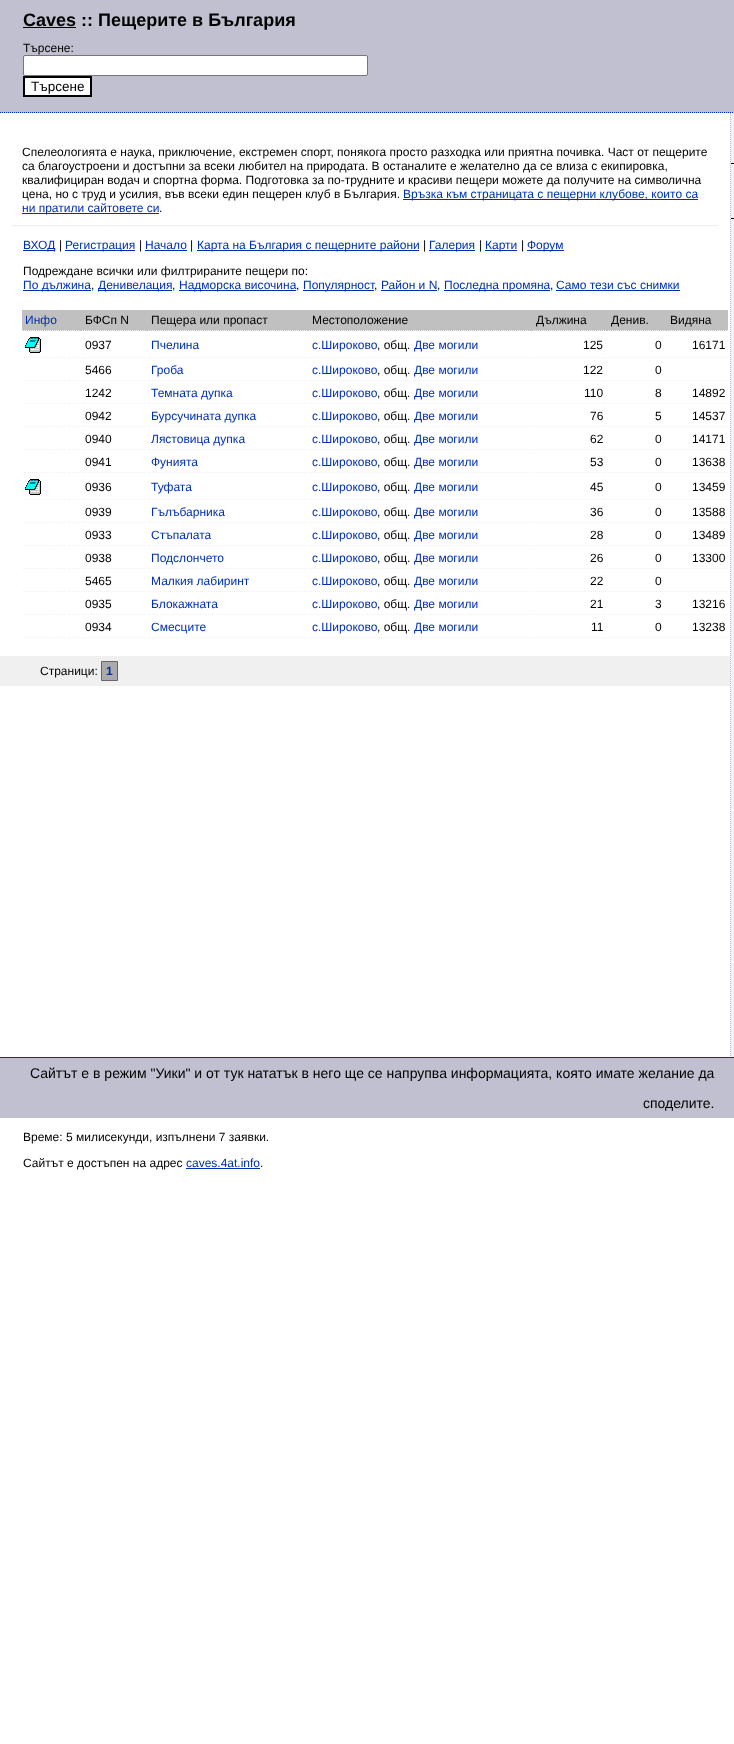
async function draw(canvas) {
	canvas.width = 734;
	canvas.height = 1744;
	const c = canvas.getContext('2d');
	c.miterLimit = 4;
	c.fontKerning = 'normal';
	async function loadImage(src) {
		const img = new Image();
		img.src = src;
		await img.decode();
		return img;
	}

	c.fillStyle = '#fff';
	c.fillRect(0, 0, 734, 1744);
	c.fillStyle = '#c0c0d0';
	c.fillRect(0, 0, 734, 113);
	c.beginPath();
	c.moveTo(0, 112.5);
	c.lineTo(734, 112.5);
	c.strokeStyle = '#0030b0';
	c.setLineDash([1, 1]);
	c.stroke();
	c.fillStyle = '#000';
	c.fillRect(23, 27, 53, 1);
	c.font = 'bold 18px Liberation Sans';
	c.fillText('Caves :: Пещерите в България', 23, 26);
	c.font = '12px Liberation Sans';
	c.fillText('Търсене:', 23, 52);
	c.fillStyle = '#fff';
	c.beginPath();
	c.roundRect(23.5, 55.5, 344, 20, 1.5);
	c.fill();
	c.strokeStyle = '#767676';
	c.setLineDash([]);
	c.stroke();
	c.beginPath();
	c.rect(24, 77, 67, 19);
	c.fill();
	c.strokeStyle = '#000';
	c.lineWidth = 2;
	c.stroke();
	c.font = '13.5px Liberation Sans';
	c.fillStyle = '#000';
	c.fillText('Търсене', 31, 91);
	c.fillStyle = '#eee';
	c.fillRect(12, 225, 706, 1);
	c.font = '12px Liberation Sans';
	c.fillStyle = '#000';
	for (const [text, x, y] of [
		['Спелеологията е наука, приключение, екстремен спорт, понякога просто разходка или приятна почивка. Част от пещерите', 22, 156],
		['са благоустроени и достъпни за всеки любител на природата. В останалите е желателно да се влиза с екипировка,', 22, 170],
		['квалифициран водач и спортна форма. Подготовка за по-трудните и красиви пещери можете да получите на символична', 22, 184],
		['цена, но с труд и усилия, във всеки един пещерен клуб в България.', 22, 198],
	]) {
		c.fillText(text, x, y);
	}
	c.fillStyle = '#0030b0';
	c.fillRect(403, 199, 295, 1);
	c.fillText('Връзка към страницата с пещерни клубове, които са', 403, 198);
	c.fillRect(22, 213, 137, 1);
	c.fillText('ни пратили сайтовете си', 22, 212);
	c.fillStyle = '#000';
	c.fillText('.', 159, 212);
	c.fillStyle = '#0030b0';
	c.fillRect(23, 250, 32, 1);
	c.fillText('ВХОД', 23, 249);
	c.fillStyle = '#000';
	c.fillText('|', 59, 249);
	c.fillStyle = '#0030b0';
	c.fillRect(65, 250, 70, 1);
	c.fillText('Регистрация', 65, 249);
	c.fillStyle = '#000';
	c.fillText('|', 139, 249);
	c.fillStyle = '#0030b0';
	c.fillText('Начало', 145, 249);
	c.fillRect(145, 250, 42, 1);
	c.fillStyle = '#000';
	c.fillText('|', 190, 249);
	c.fillStyle = '#0030b0';
	c.fillRect(197, 250, 222, 1);
	c.fillText('Карта на България с пещерните райони', 197, 249);
	c.fillStyle = '#000';
	c.fillText('|', 423, 249);
	c.fillStyle = '#0030b0';
	c.fillRect(429, 250, 46, 1);
	c.fillText('Галерия', 429, 249);
	c.fillStyle = '#000';
	c.fillText('|', 479, 249);
	c.fillStyle = '#0030b0';
	c.fillRect(485, 250, 32, 1);
	c.fillText('Карти', 485, 249);
	c.fillStyle = '#000';
	c.fillText('|', 521, 249);
	c.fillStyle = '#0030b0';
	c.fillRect(527, 250, 37, 1);
	c.fillText('Форум', 527, 249);
	c.fillStyle = '#000';
	c.fillText('Подреждане всички или филтрираните пещери по:', 23, 275);
	c.fillStyle = '#0030b0';
	c.fillRect(23, 290, 68, 1);
	c.fillText('По дължина', 23, 289);
	c.fillStyle = '#000';
	c.fillText(',', 91, 289);
	c.fillStyle = '#0030b0';
	c.fillRect(98, 290, 74, 1);
	c.fillText('Денивелация', 98, 289);
	c.fillStyle = '#000';
	c.fillText(',', 172, 289);
	c.fillStyle = '#0030b0';
	c.fillRect(179, 290, 117, 1);
	c.fillText('Надморска височина', 179, 289);
	c.fillStyle = '#000';
	c.fillText(',', 296, 289);
	c.fillStyle = '#0030b0';
	c.fillRect(303, 290, 71, 1);
	c.fillText('Популярност', 303, 289);
	c.fillStyle = '#000';
	c.fillText(',', 374, 289);
	c.fillStyle = '#0030b0';
	c.fillText('Район и N', 381, 289);
	c.fillRect(381, 290, 56, 1);
	c.fillStyle = '#000';
	c.fillText(',', 437, 289);
	c.fillStyle = '#0030b0';
	c.fillRect(444, 290, 106, 1);
	c.fillText('Последна промяна', 444, 289);
	c.fillStyle = '#000';
	c.fillText(',', 550, 289);
	c.fillStyle = '#0030b0';
	c.fillText('Само тези със снимки', 556, 289);
	c.fillRect(556, 290, 124, 1);
	c.fillStyle = '#c0c0c0';
	c.fillRect(22, 310, 706, 21);
	c.beginPath();
	c.moveTo(22, 330.5);
	c.lineTo(80, 330.5);
	c.strokeStyle = '#f0f0f0';
	c.lineWidth = 1;
	c.setLineDash([1, 1]);
	c.stroke();
	c.fillStyle = '#0030b0';
	c.fillText('Инфо', 25, 324);
	c.beginPath();
	c.moveTo(82, 330.5);
	c.lineTo(146, 330.5);
	c.stroke();
	c.fillStyle = '#000';
	c.fillText('БФСп N', 85, 324);
	c.beginPath();
	c.moveTo(148, 330.5);
	c.lineTo(307, 330.5);
	c.stroke();
	c.fillText('Пещера или пропаст', 151, 324);
	c.beginPath();
	c.moveTo(309, 330.5);
	c.lineTo(531, 330.5);
	c.stroke();
	c.fillText('Местоположение', 312, 324);
	c.beginPath();
	c.moveTo(533, 330.5);
	c.lineTo(606, 330.5);
	c.stroke();
	c.fillText('Дължина', 536, 324);
	c.beginPath();
	c.moveTo(608, 330.5);
	c.lineTo(665, 330.5);
	c.stroke();
	c.fillText('Денив.', 611, 324);
	c.beginPath();
	c.moveTo(667, 330.5);
	c.lineTo(728, 330.5);
	c.stroke();
	c.fillText('Видяна', 670, 324);
	c.beginPath();
	c.moveTo(22, 357.5);
	c.lineTo(52, 357.5);
	c.moveTo(54, 357.5);
	c.lineTo(66, 357.5);
	c.moveTo(68, 357.5);
	c.lineTo(80, 357.5);
	c.stroke();
	c.drawImage(await loadImage('img1.png'), 25, 337, 16, 16);
	c.beginPath();
	c.moveTo(82, 357.5);
	c.lineTo(146, 357.5);
	c.stroke();
	c.fillText('0937', 85, 349);
	c.beginPath();
	c.moveTo(148, 357.5);
	c.lineTo(307, 357.5);
	c.stroke();
	c.fillStyle = '#0030b0';
	c.fillText('Пчелина', 151, 349);
	c.beginPath();
	c.moveTo(309, 357.5);
	c.lineTo(531, 357.5);
	c.stroke();
	c.fillText('с.Широково', 312, 349);
	c.fillStyle = '#000';
	c.fillText(', общ.', 377, 349);
	c.fillStyle = '#0030b0';
	c.fillText('Две могили', 414, 349);
	c.beginPath();
	c.moveTo(533, 357.5);
	c.lineTo(606, 357.5);
	c.stroke();
	c.fillStyle = '#000';
	c.fillText('125', 583, 349);
	c.beginPath();
	c.moveTo(608, 357.5);
	c.lineTo(665, 357.5);
	c.stroke();
	c.fillText('0', 655, 349);
	c.beginPath();
	c.moveTo(667, 357.5);
	c.lineTo(728, 357.5);
	c.stroke();
	c.fillText('16171', 692, 349);
	c.beginPath();
	c.moveTo(82, 380.5);
	c.lineTo(146, 380.5);
	c.stroke();
	c.fillText('5466', 85, 374);
	c.beginPath();
	c.moveTo(148, 380.5);
	c.lineTo(307, 380.5);
	c.stroke();
	c.fillStyle = '#0030b0';
	c.fillText('Гроба', 151, 374);
	c.beginPath();
	c.moveTo(309, 380.5);
	c.lineTo(531, 380.5);
	c.stroke();
	c.fillText('с.Широково', 312, 374);
	c.fillStyle = '#000';
	c.fillText(', общ.', 377, 374);
	c.fillStyle = '#0030b0';
	c.fillText('Две могили', 414, 374);
	c.beginPath();
	c.moveTo(533, 380.5);
	c.lineTo(606, 380.5);
	c.stroke();
	c.fillStyle = '#000';
	c.fillText('122', 583, 374);
	c.beginPath();
	c.moveTo(608, 380.5);
	c.lineTo(665, 380.5);
	c.stroke();
	c.fillText('0', 655, 374);
	c.beginPath();
	c.moveTo(22, 380.5);
	c.lineTo(52, 380.5);
	c.moveTo(54, 380.5);
	c.lineTo(66, 380.5);
	c.moveTo(68, 380.5);
	c.lineTo(80, 380.5);
	c.stroke();
	c.beginPath();
	c.moveTo(667, 380.5);
	c.lineTo(728, 380.5);
	c.stroke();
	c.beginPath();
	c.moveTo(82, 403.5);
	c.lineTo(146, 403.5);
	c.stroke();
	c.fillText('1242', 85, 397);
	c.beginPath();
	c.moveTo(148, 403.5);
	c.lineTo(307, 403.5);
	c.stroke();
	c.fillStyle = '#0030b0';
	c.fillText('Темната дупка', 151, 397);
	c.beginPath();
	c.moveTo(309, 403.5);
	c.lineTo(531, 403.5);
	c.stroke();
	c.fillText('с.Широково', 312, 397);
	c.fillStyle = '#000';
	c.fillText(', общ.', 377, 397);
	c.fillStyle = '#0030b0';
	c.fillText('Две могили', 414, 397);
	c.beginPath();
	c.moveTo(533, 403.5);
	c.lineTo(606, 403.5);
	c.stroke();
	c.fillStyle = '#000';
	c.fillText('110', 584, 397);
	c.beginPath();
	c.moveTo(608, 403.5);
	c.lineTo(665, 403.5);
	c.stroke();
	c.fillText('8', 655, 397);
	c.beginPath();
	c.moveTo(667, 403.5);
	c.lineTo(728, 403.5);
	c.stroke();
	c.fillText('14892', 692, 397);
	c.beginPath();
	c.moveTo(22, 403.5);
	c.lineTo(52, 403.5);
	c.moveTo(54, 403.5);
	c.lineTo(66, 403.5);
	c.moveTo(68, 403.5);
	c.lineTo(80, 403.5);
	c.stroke();
	c.beginPath();
	c.moveTo(82, 426.5);
	c.lineTo(146, 426.5);
	c.stroke();
	c.fillText('0942', 85, 420);
	c.beginPath();
	c.moveTo(148, 426.5);
	c.lineTo(307, 426.5);
	c.stroke();
	c.fillStyle = '#0030b0';
	c.fillText('Бурсучината дупка', 151, 420);
	c.beginPath();
	c.moveTo(309, 426.5);
	c.lineTo(531, 426.5);
	c.stroke();
	c.fillText('с.Широково', 312, 420);
	c.fillStyle = '#000';
	c.fillText(', общ.', 377, 420);
	c.fillStyle = '#0030b0';
	c.fillText('Две могили', 414, 420);
	c.beginPath();
	c.moveTo(533, 426.5);
	c.lineTo(606, 426.5);
	c.stroke();
	c.fillStyle = '#000';
	c.fillText('76', 590, 420);
	c.beginPath();
	c.moveTo(608, 426.5);
	c.lineTo(665, 426.5);
	c.stroke();
	c.fillText('5', 655, 420);
	c.beginPath();
	c.moveTo(667, 426.5);
	c.lineTo(728, 426.5);
	c.stroke();
	c.fillText('14537', 692, 420);
	c.beginPath();
	c.moveTo(22, 426.5);
	c.lineTo(52, 426.5);
	c.moveTo(54, 426.5);
	c.lineTo(66, 426.5);
	c.moveTo(68, 426.5);
	c.lineTo(80, 426.5);
	c.stroke();
	c.beginPath();
	c.moveTo(82, 449.5);
	c.lineTo(146, 449.5);
	c.stroke();
	c.fillText('0940', 85, 443);
	c.beginPath();
	c.moveTo(148, 449.5);
	c.lineTo(307, 449.5);
	c.stroke();
	c.fillStyle = '#0030b0';
	c.fillText('Лястовица дупка', 151, 443);
	c.beginPath();
	c.moveTo(309, 449.5);
	c.lineTo(531, 449.5);
	c.stroke();
	c.fillText('с.Широково', 312, 443);
	c.fillStyle = '#000';
	c.fillText(', общ.', 377, 443);
	c.fillStyle = '#0030b0';
	c.fillText('Две могили', 414, 443);
	c.beginPath();
	c.moveTo(533, 449.5);
	c.lineTo(606, 449.5);
	c.stroke();
	c.fillStyle = '#000';
	c.fillText('62', 590, 443);
	c.beginPath();
	c.moveTo(608, 449.5);
	c.lineTo(665, 449.5);
	c.stroke();
	c.fillText('0', 655, 443);
	c.beginPath();
	c.moveTo(667, 449.5);
	c.lineTo(728, 449.5);
	c.stroke();
	c.fillText('14171', 692, 443);
	c.beginPath();
	c.moveTo(22, 449.5);
	c.lineTo(52, 449.5);
	c.moveTo(54, 449.5);
	c.lineTo(66, 449.5);
	c.moveTo(68, 449.5);
	c.lineTo(80, 449.5);
	c.stroke();
	c.beginPath();
	c.moveTo(82, 472.5);
	c.lineTo(146, 472.5);
	c.stroke();
	c.fillText('0941', 85, 466);
	c.beginPath();
	c.moveTo(148, 472.5);
	c.lineTo(307, 472.5);
	c.stroke();
	c.fillStyle = '#0030b0';
	c.fillText('Фунията', 151, 466);
	c.beginPath();
	c.moveTo(309, 472.5);
	c.lineTo(531, 472.5);
	c.stroke();
	c.fillText('с.Широково', 312, 466);
	c.fillStyle = '#000';
	c.fillText(', общ.', 377, 466);
	c.fillStyle = '#0030b0';
	c.fillText('Две могили', 414, 466);
	c.beginPath();
	c.moveTo(533, 472.5);
	c.lineTo(606, 472.5);
	c.stroke();
	c.fillStyle = '#000';
	c.fillText('53', 590, 466);
	c.beginPath();
	c.moveTo(608, 472.5);
	c.lineTo(665, 472.5);
	c.stroke();
	c.fillText('0', 655, 466);
	c.beginPath();
	c.moveTo(667, 472.5);
	c.lineTo(728, 472.5);
	c.stroke();
	c.fillText('13638', 692, 466);
	c.beginPath();
	c.moveTo(22, 472.5);
	c.lineTo(52, 472.5);
	c.moveTo(54, 472.5);
	c.lineTo(66, 472.5);
	c.moveTo(68, 472.5);
	c.lineTo(80, 472.5);
	c.stroke();
	c.beginPath();
	c.moveTo(22, 499.5);
	c.lineTo(52, 499.5);
	c.moveTo(54, 499.5);
	c.lineTo(66, 499.5);
	c.moveTo(68, 499.5);
	c.lineTo(80, 499.5);
	c.stroke();
	c.drawImage(await loadImage('img1.png'), 25, 479, 16, 16);
	c.beginPath();
	c.moveTo(82, 499.5);
	c.lineTo(146, 499.5);
	c.stroke();
	c.fillText('0936', 85, 491);
	c.beginPath();
	c.moveTo(148, 499.5);
	c.lineTo(307, 499.5);
	c.stroke();
	c.fillStyle = '#0030b0';
	c.fillText('Туфата', 151, 491);
	c.beginPath();
	c.moveTo(309, 499.5);
	c.lineTo(531, 499.5);
	c.stroke();
	c.fillText('с.Широково', 312, 491);
	c.fillStyle = '#000';
	c.fillText(', общ.', 377, 491);
	c.fillStyle = '#0030b0';
	c.fillText('Две могили', 414, 491);
	c.beginPath();
	c.moveTo(533, 499.5);
	c.lineTo(606, 499.5);
	c.stroke();
	c.fillStyle = '#000';
	c.fillText('45', 590, 491);
	c.beginPath();
	c.moveTo(608, 499.5);
	c.lineTo(665, 499.5);
	c.stroke();
	c.fillText('0', 655, 491);
	c.beginPath();
	c.moveTo(667, 499.5);
	c.lineTo(728, 499.5);
	c.stroke();
	c.fillText('13459', 692, 491);
	c.beginPath();
	c.moveTo(82, 522.5);
	c.lineTo(146, 522.5);
	c.stroke();
	c.fillText('0939', 85, 516);
	c.beginPath();
	c.moveTo(148, 522.5);
	c.lineTo(307, 522.5);
	c.stroke();
	c.fillStyle = '#0030b0';
	c.fillText('Гълъбарника', 151, 516);
	c.beginPath();
	c.moveTo(309, 522.5);
	c.lineTo(531, 522.5);
	c.stroke();
	c.fillText('с.Широково', 312, 516);
	c.fillStyle = '#000';
	c.fillText(', общ.', 377, 516);
	c.fillStyle = '#0030b0';
	c.fillText('Две могили', 414, 516);
	c.beginPath();
	c.moveTo(533, 522.5);
	c.lineTo(606, 522.5);
	c.stroke();
	c.fillStyle = '#000';
	c.fillText('36', 590, 516);
	c.beginPath();
	c.moveTo(608, 522.5);
	c.lineTo(665, 522.5);
	c.stroke();
	c.fillText('0', 655, 516);
	c.beginPath();
	c.moveTo(667, 522.5);
	c.lineTo(728, 522.5);
	c.stroke();
	c.fillText('13588', 692, 516);
	c.beginPath();
	c.moveTo(22, 522.5);
	c.lineTo(52, 522.5);
	c.moveTo(54, 522.5);
	c.lineTo(66, 522.5);
	c.moveTo(68, 522.5);
	c.lineTo(80, 522.5);
	c.stroke();
	c.beginPath();
	c.moveTo(82, 545.5);
	c.lineTo(146, 545.5);
	c.stroke();
	c.fillText('0933', 85, 539);
	c.beginPath();
	c.moveTo(148, 545.5);
	c.lineTo(307, 545.5);
	c.stroke();
	c.fillStyle = '#0030b0';
	c.fillText('Стъпалата', 151, 539);
	c.beginPath();
	c.moveTo(309, 545.5);
	c.lineTo(531, 545.5);
	c.stroke();
	c.fillText('с.Широково', 312, 539);
	c.fillStyle = '#000';
	c.fillText(', общ.', 377, 539);
	c.fillStyle = '#0030b0';
	c.fillText('Две могили', 414, 539);
	c.beginPath();
	c.moveTo(533, 545.5);
	c.lineTo(606, 545.5);
	c.stroke();
	c.fillStyle = '#000';
	c.fillText('28', 590, 539);
	c.beginPath();
	c.moveTo(608, 545.5);
	c.lineTo(665, 545.5);
	c.stroke();
	c.fillText('0', 655, 539);
	c.beginPath();
	c.moveTo(667, 545.5);
	c.lineTo(728, 545.5);
	c.stroke();
	c.fillText('13489', 692, 539);
	c.beginPath();
	c.moveTo(22, 545.5);
	c.lineTo(52, 545.5);
	c.moveTo(54, 545.5);
	c.lineTo(66, 545.5);
	c.moveTo(68, 545.5);
	c.lineTo(80, 545.5);
	c.stroke();
	c.beginPath();
	c.moveTo(82, 568.5);
	c.lineTo(146, 568.5);
	c.stroke();
	c.fillText('0938', 85, 562);
	c.beginPath();
	c.moveTo(148, 568.5);
	c.lineTo(307, 568.5);
	c.stroke();
	c.fillStyle = '#0030b0';
	c.fillText('Подслончето', 151, 562);
	c.beginPath();
	c.moveTo(309, 568.5);
	c.lineTo(531, 568.5);
	c.stroke();
	c.fillText('с.Широково', 312, 562);
	c.fillStyle = '#000';
	c.fillText(', общ.', 377, 562);
	c.fillStyle = '#0030b0';
	c.fillText('Две могили', 414, 562);
	c.beginPath();
	c.moveTo(533, 568.5);
	c.lineTo(606, 568.5);
	c.stroke();
	c.fillStyle = '#000';
	c.fillText('26', 590, 562);
	c.beginPath();
	c.moveTo(608, 568.5);
	c.lineTo(665, 568.5);
	c.stroke();
	c.fillText('0', 655, 562);
	c.beginPath();
	c.moveTo(667, 568.5);
	c.lineTo(728, 568.5);
	c.stroke();
	c.fillText('13300', 692, 562);
	c.beginPath();
	c.moveTo(22, 568.5);
	c.lineTo(52, 568.5);
	c.moveTo(54, 568.5);
	c.lineTo(66, 568.5);
	c.moveTo(68, 568.5);
	c.lineTo(80, 568.5);
	c.stroke();
	c.beginPath();
	c.moveTo(82, 591.5);
	c.lineTo(146, 591.5);
	c.stroke();
	c.fillText('5465', 85, 585);
	c.beginPath();
	c.moveTo(148, 591.5);
	c.lineTo(307, 591.5);
	c.stroke();
	c.fillStyle = '#0030b0';
	c.fillText('Малкия лабиринт', 151, 585);
	c.beginPath();
	c.moveTo(309, 591.5);
	c.lineTo(531, 591.5);
	c.stroke();
	c.fillText('с.Широково', 312, 585);
	c.fillStyle = '#000';
	c.fillText(', общ.', 377, 585);
	c.fillStyle = '#0030b0';
	c.fillText('Две могили', 414, 585);
	c.beginPath();
	c.moveTo(533, 591.5);
	c.lineTo(606, 591.5);
	c.stroke();
	c.fillStyle = '#000';
	c.fillText('22', 590, 585);
	c.beginPath();
	c.moveTo(608, 591.5);
	c.lineTo(665, 591.5);
	c.stroke();
	c.fillText('0', 655, 585);
	c.beginPath();
	c.moveTo(22, 591.5);
	c.lineTo(52, 591.5);
	c.moveTo(54, 591.5);
	c.lineTo(66, 591.5);
	c.moveTo(68, 591.5);
	c.lineTo(80, 591.5);
	c.stroke();
	c.beginPath();
	c.moveTo(667, 591.5);
	c.lineTo(728, 591.5);
	c.stroke();
	c.beginPath();
	c.moveTo(82, 614.5);
	c.lineTo(146, 614.5);
	c.stroke();
	c.fillText('0935', 85, 608);
	c.beginPath();
	c.moveTo(148, 614.5);
	c.lineTo(307, 614.5);
	c.stroke();
	c.fillStyle = '#0030b0';
	c.fillText('Блокажната', 151, 608);
	c.beginPath();
	c.moveTo(309, 614.5);
	c.lineTo(531, 614.5);
	c.stroke();
	c.fillText('с.Широково', 312, 608);
	c.fillStyle = '#000';
	c.fillText(', общ.', 377, 608);
	c.fillStyle = '#0030b0';
	c.fillText('Две могили', 414, 608);
	c.beginPath();
	c.moveTo(533, 614.5);
	c.lineTo(606, 614.5);
	c.stroke();
	c.fillStyle = '#000';
	c.fillText('21', 590, 608);
	c.beginPath();
	c.moveTo(608, 614.5);
	c.lineTo(665, 614.5);
	c.stroke();
	c.fillText('3', 655, 608);
	c.beginPath();
	c.moveTo(667, 614.5);
	c.lineTo(728, 614.5);
	c.stroke();
	c.fillText('13216', 692, 608);
	c.beginPath();
	c.moveTo(22, 614.5);
	c.lineTo(52, 614.5);
	c.moveTo(54, 614.5);
	c.lineTo(66, 614.5);
	c.moveTo(68, 614.5);
	c.lineTo(80, 614.5);
	c.stroke();
	c.beginPath();
	c.moveTo(82, 637.5);
	c.lineTo(146, 637.5);
	c.stroke();
	c.fillText('0934', 85, 631);
	c.beginPath();
	c.moveTo(148, 637.5);
	c.lineTo(307, 637.5);
	c.stroke();
	c.fillStyle = '#0030b0';
	c.fillText('Смесците', 151, 631);
	c.beginPath();
	c.moveTo(309, 637.5);
	c.lineTo(531, 637.5);
	c.stroke();
	c.fillText('с.Широково', 312, 631);
	c.fillStyle = '#000';
	c.fillText(', общ.', 377, 631);
	c.fillStyle = '#0030b0';
	c.fillText('Две могили', 414, 631);
	c.beginPath();
	c.moveTo(533, 637.5);
	c.lineTo(606, 637.5);
	c.stroke();
	c.fillStyle = '#000';
	c.fillText('11', 591, 631);
	c.beginPath();
	c.moveTo(608, 637.5);
	c.lineTo(665, 637.5);
	c.stroke();
	c.fillText('0', 655, 631);
	c.beginPath();
	c.moveTo(667, 637.5);
	c.lineTo(728, 637.5);
	c.stroke();
	c.fillText('13238', 692, 631);
	c.beginPath();
	c.moveTo(22, 637.5);
	c.lineTo(52, 637.5);
	c.moveTo(54, 637.5);
	c.lineTo(66, 637.5);
	c.moveTo(68, 637.5);
	c.lineTo(80, 637.5);
	c.stroke();
	c.fillStyle = '#f0f0f0';
	c.fillRect(0, 656, 730, 30);
	c.fillStyle = '#000';
	c.fillText('Страници:', 40, 675);
	c.fillStyle = '#aaa';
	c.beginPath();
	c.rect(101.5, 661.5, 16, 19);
	c.fill();
	c.strokeStyle = '#666';
	c.setLineDash([]);
	c.stroke();
	c.font = 'bold 12px Liberation Sans';
	c.fillStyle = '#0030b0';
	c.fillText('1', 106, 675);
	c.fillStyle = '#f0f2f3';
	c.fillRect(730, 113, 4, 944);
	c.beginPath();
	c.moveTo(730.5, 113);
	c.lineTo(730.5, 1057);
	c.strokeStyle = '#c0c0d0';
	c.setLineDash([1, 1]);
	c.stroke();
	for (const [x, y, w, h, color] of [
		[731, 163, 3, 1, '#000'],
		[731, 218, 3, 1, '#000'],
		[731, 809, 3, 2, '#fff'],
		[731, 961, 3, 2, '#fff'],
		[0, 1058, 734, 60, '#c0c0d0'],
		[0, 1057, 734, 1, '#0030b0'],
	]) {
		c.fillStyle = color;
		c.fillRect(x, y, w, h);
	}
	c.font = '14px Liberation Sans';
	c.fillStyle = '#000';
	c.fillText('Сайтът е в режим "Уики" и от тук нататък в него ще се напрупва информацията, която имате желание да', 30, 1078);
	c.fillText('споделите.', 643, 1108);
	c.font = '12px Liberation Sans';
	c.fillText('Време: 5 милисекунди, изпълнени 7 заявки.', 23, 1141);
	c.fillText('Сайтът е достъпен на адрес', 23, 1167);
	c.fillStyle = '#0030b0';
	c.fillText('caves.4at.info', 186, 1167);
	c.fillRect(186, 1168, 74, 1);
	c.fillStyle = '#000';
	c.fillText('.', 260, 1167);
}

draw(document.querySelector('canvas'));
